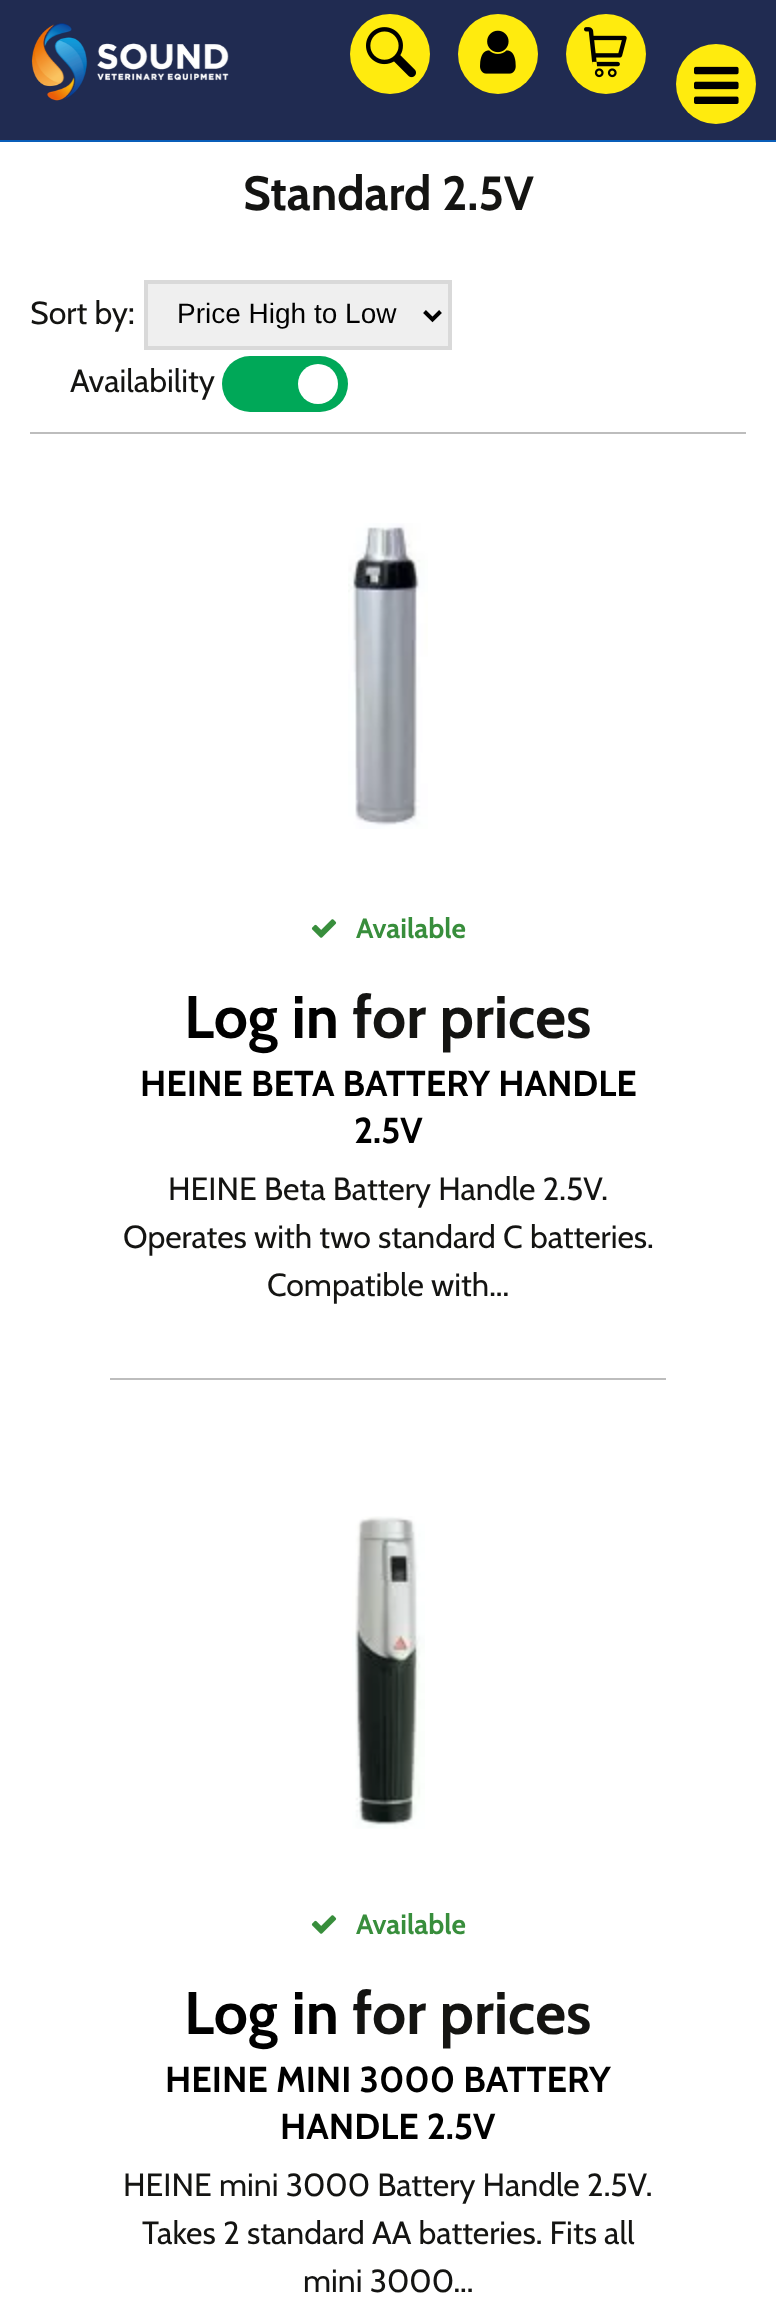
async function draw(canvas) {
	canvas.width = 776;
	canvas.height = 2324;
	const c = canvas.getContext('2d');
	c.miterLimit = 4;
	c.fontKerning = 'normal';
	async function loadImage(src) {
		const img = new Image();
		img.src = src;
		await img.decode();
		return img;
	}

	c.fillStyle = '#fff';
	c.fillRect(0, 0, 776, 2324);
	c.fillStyle = '#202b51';
	c.fillRect(0, 0, 776, 140);
	c.drawImage(await loadImage('img1.png'), 31, 23, 198, 78);
	c.fillStyle = '#ffeb0e';
	c.beginPath();
	c.arc(390, 54, 40, 0, 2 * Math.PI);
	c.fill();
	c.drawImage(await loadImage('img2.png'), 366, 27, 50, 51);
	c.beginPath();
	c.arc(498, 54, 40, 0, 2 * Math.PI);
	c.fill();
	c.drawImage(await loadImage('img3.png'), 480, 30, 36, 44);
	c.beginPath();
	c.arc(606, 54, 40, 0, 2 * Math.PI);
	c.fill();
	c.drawImage(await loadImage('img4.png'), 584, 27, 43, 51);
	c.fillStyle = '#095eb9';
	c.fillRect(0, 140, 776, 2);
	c.fillStyle = '#ffeb0e';
	c.beginPath();
	c.arc(716, 84, 40, 0, 2 * Math.PI);
	c.fill();
	c.drawImage(await loadImage('img5.png'), 694, 66, 45, 38);
	c.font = 'bold 48px Cabin';
	c.fillStyle = '#141412';
	c.fillText('Standard 2.5V', 243, 210);
	c.fillStyle = '#bdbdbd';
	c.fillRect(30, 432, 716, 2);
	c.font = '32px Cabin';
	c.fillStyle = '#141412';
	c.fillText('Sort by:', 30, 324);
	c.fillStyle = '#efefef';
	c.beginPath();
	c.rect(146, 282, 304, 66);
	c.fill();
	c.strokeStyle = '#d9d9d9';
	c.lineWidth = 4;
	c.stroke();
	c.beginPath();
	c.moveTo(424.5, 311.5);
	c.lineTo(432.5, 319.5);
	c.lineTo(440.5, 311.5);
	c.strokeStyle = '#000';
	c.stroke();
	c.font = '28px Liberation Sans';
	c.fillStyle = '#000';
	c.fillText('Price High to Low', 177, 323);
	c.font = '32px Cabin';
	c.fillStyle = '#141412';
	c.fillText('Availability', 70, 392);
	c.fillStyle = '#00a858';
	c.beginPath();
	c.roundRect(222, 356, 66, 56, [28, 0, 0, 28]);
	c.fill();
	c.beginPath();
	c.roundRect(288, 356, 60, 56, [0, 28, 28, 0]);
	c.fill();
	c.fillStyle = '#fff';
	c.beginPath();
	c.arc(318, 384, 20, 0, 2 * Math.PI);
	c.fill();
	c.drawImage(await loadImage('img6.png'), 348, 523, 80, 306);
	c.drawImage(await loadImage('img7.png'), 311, 919, 26, 19);
	c.font = 'bold 28px Cabin';
	c.fillStyle = '#388e3c';
	c.fillText('Available', 356, 938);
	c.font = 'bold 60px Cabin';
	c.fillStyle = '#000';
	c.fillText('Log in', 184, 1038);
	c.fillStyle = '#141412';
	c.fillText('for prices', 352, 1038);
	c.font = 'bold 36px Cabin';
	c.fillStyle = '#000';
	c.fillText('HEINE BETA BATTERY HANDLE', 140, 1096);
	c.fillText('2.5V', 354, 1143);
	c.font = '32px Cabin';
	c.fillStyle = '#141412';
	for (const [text, x, y] of [
		['HEINE Beta Battery Handle 2.5V.', 168, 1200],
		['Operates with two standard C batteries.', 123, 1248],
		['Compatible with...', 267, 1296],
	]) {
		c.fillText(text, x, y);
	}
	c.fillStyle = '#bdbdbd';
	c.fillRect(110, 1378, 556, 2);
	c.drawImage(await loadImage('img8.png'), 352, 1516, 73, 313);
	c.drawImage(await loadImage('img7.png'), 311, 1915, 26, 19);
	c.font = 'bold 28px Cabin';
	c.fillStyle = '#388e3c';
	c.fillText('Available', 356, 1934);
	c.font = 'bold 60px Cabin';
	c.fillStyle = '#000';
	c.fillText('Log in', 184, 2034);
	c.fillStyle = '#141412';
	c.fillText('for prices', 352, 2034);
	c.font = 'bold 36px Cabin';
	c.fillStyle = '#000';
	c.fillText('HEINE MINI 3000 BATTERY', 165, 2092);
	c.fillText('HANDLE 2.5V', 280, 2139);
	c.font = '32px Cabin';
	c.fillStyle = '#141412';
	for (const [text, x, y] of [
		['HEINE mini 3000 Battery Handle 2.5V.', 123, 2196],
		['Takes 2 standard AA batteries. Fits all', 142, 2244],
		['mini 3000...', 303, 2292],
	]) {
		c.fillText(text, x, y);
	}
}

draw(document.querySelector('canvas'));
